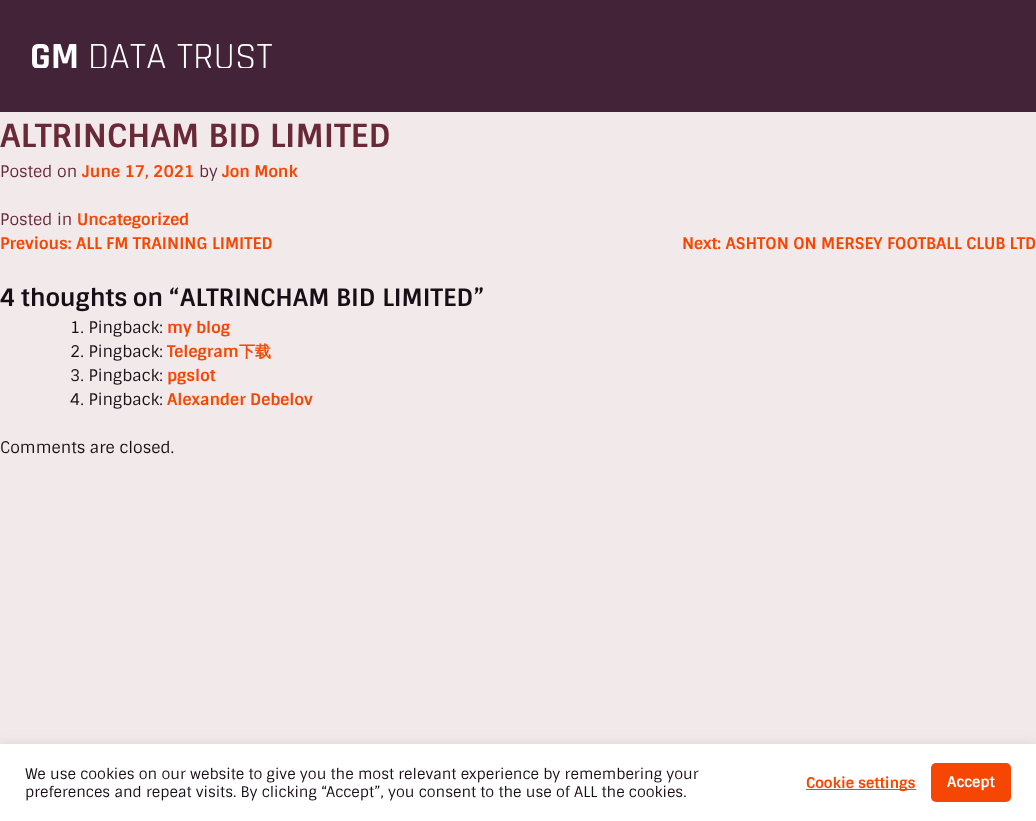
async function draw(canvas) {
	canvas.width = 1036;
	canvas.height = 821;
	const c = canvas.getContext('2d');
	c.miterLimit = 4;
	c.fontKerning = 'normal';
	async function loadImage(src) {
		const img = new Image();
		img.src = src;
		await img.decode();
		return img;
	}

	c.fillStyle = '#f2e9ea';
	c.fillRect(0, 0, 1036, 821);
	c.fillStyle = '#422338';
	c.fillRect(0, 0, 1036, 112);
	c.drawImage(await loadImage('img1.png'), 32, 44, 240, 24);
	c.font = 'bold 32px Sintony';
	c.fillStyle = '#6a2938';
	c.fillText('ALTRINCHAM BID LIMITED', 0, 147);
	c.font = '16px Sintony';
	c.fillText('Posted on', 0, 177);
	c.font = 'bold 16px Sintony';
	c.fillStyle = '#f64603';
	c.fillText('June 17, 2021', 82, 177);
	c.font = '16px Sintony';
	c.fillStyle = '#6a2938';
	c.fillText('by', 199, 177);
	c.font = 'bold 16px Sintony';
	c.fillStyle = '#f64603';
	c.fillText('Jon Monk', 222, 177);
	c.font = '16px Sintony';
	c.fillStyle = '#6a2938';
	c.fillText('Posted in', 0, 225);
	c.font = 'bold 16px Sintony';
	c.fillStyle = '#f64603';
	for (const [text, x, y] of [
		['Uncategorized', 77, 225],
		['Previous: ALL FM TRAINING LIMITED', 0, 249],
		['Next: ASHTON ON MERSEY FOOTBALL CLUB LTD', 682, 249],
	]) {
		c.fillText(text, x, y);
	}
	c.wordSpacing = '-1px';
	c.font = 'bold 24px Sintony';
	c.fillStyle = '#1a0e16';
	c.fillText('4 thoughts on “', 0, 306);
	c.wordSpacing = '0px';
	c.fillText('ALTRINCHAM BID LIMITED”', 180, 306);
	c.font = '16px Sintony';
	c.fillText('1. Pingback:', 70, 333);
	c.font = 'bold 16px Sintony';
	c.fillStyle = '#f64603';
	c.fillText('my blog', 167, 333);
	c.font = '16px Sintony';
	c.fillStyle = '#1a0e16';
	c.fillText('2. Pingback:', 70, 357);
	c.font = 'bold 16px Sintony';
	c.fillStyle = '#f64603';
	c.fillText('Telegram', 167, 357);
	c.font = 'bold 16px WenQuanYi Zen Hei';
	c.fillText('下载', 239, 357);
	c.font = '16px Sintony';
	c.fillStyle = '#1a0e16';
	c.fillText('3. Pingback:', 70, 381);
	c.font = 'bold 16px Sintony';
	c.fillStyle = '#f64603';
	c.fillText('pgslot', 167, 381);
	c.font = '16px Sintony';
	c.fillStyle = '#1a0e16';
	c.fillText('4. Pingback:', 70, 405);
	c.font = 'bold 16px Sintony';
	c.fillStyle = '#f64603';
	c.fillText('Alexander Debelov', 167, 405);
	c.font = '16px Sintony';
	c.fillStyle = '#1a0e16';
	c.fillText('Comments are closed.', 0, 453);
	c.fillStyle = '#acabab4d';
	c.filter = 'blur(5px)';
	c.beginPath();
	c.rect(0, 743, 1036, 77);
	c.fill();
	c.filter = 'none';
	c.fillStyle = '#fff';
	c.fillRect(0, 744, 1036, 77);
	c.font = '14.65px Sintony';
	c.fillStyle = '#1a0e16';
	c.fillText('We use cookies on our website to give you the most relevant experience by remembering your', 25, 779);
	c.fillText('preferences and repeat visits. By clicking “Accept”, you consent to the use of ALL the cookies.', 25, 797);
	c.fillStyle = '#f64603';
	c.fillRect(806, 789, 110, 1);
	c.font = 'bold 14.65px Sintony';
	c.fillText('Cookie settings', 806, 788);
	c.beginPath();
	c.roundRect(931, 763, 80, 39, 5);
	c.fill();
	c.fillStyle = '#fff';
	c.fillText('Accept', 947, 787);
}

draw(document.querySelector('canvas'));
